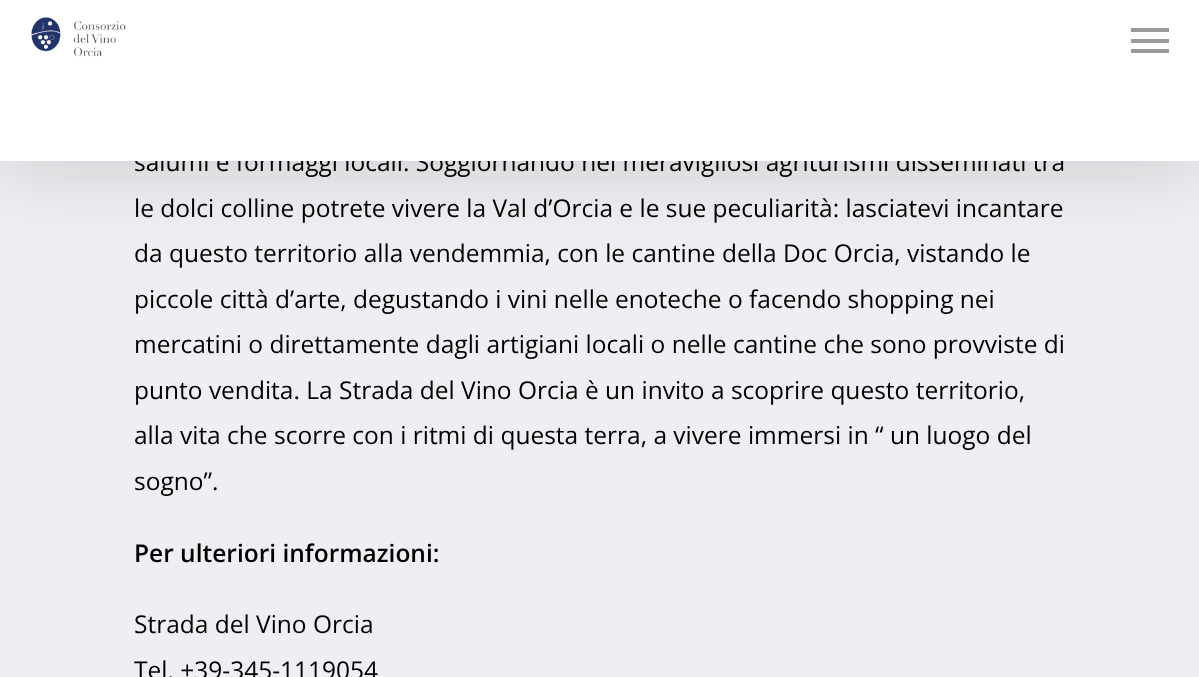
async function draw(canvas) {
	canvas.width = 1199;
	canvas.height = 677;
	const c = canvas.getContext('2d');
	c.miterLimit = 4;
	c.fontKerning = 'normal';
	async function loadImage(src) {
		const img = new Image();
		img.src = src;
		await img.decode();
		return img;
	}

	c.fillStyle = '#eeeff2';
	c.fillRect(0, 0, 1199, 677);
	c.fillStyle = '#00000026';
	c.filter = 'blur(39.5px)';
	c.beginPath();
	c.rect(0, 5, 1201, 161);
	c.fill();
	c.filter = 'none';
	c.font = '24.5px Open Sans';
	c.fillStyle = '#000';
	c.fillText('salumi e formaggi locali. Soggiornando nei meravigliosi agriturismi disseminati tra', 134, 171);
	c.fillStyle = '#fff';
	c.fillRect(0, 0, 1199, 161);
	c.drawImage(await loadImage('img1.png'), 31, 17, 95, 40);
	for (const [x, y, w, h, color] of [
		[1131, 28, 38, 4, '#999'],
		[1131, 49, 38, 4, '#999'],
		[1131, 39, 38, 4, '#999'],
	]) {
		c.fillStyle = color;
		c.fillRect(x, y, w, h);
	}
	c.fillStyle = '#000';
	for (const [text, x, y] of [
		['le dolci colline potrete vivere la Val d’Orcia e le sue peculiarità: lasciatevi incantare', 134, 217],
		['da questo territorio alla vendemmia, con le cantine della Doc Orcia, vistando le', 134, 262],
		['piccole città d’arte, degustando i vini nelle enoteche o facendo shopping nei', 134, 308],
		['mercatini o direttamente dagli artigiani locali o nelle cantine che sono provviste di', 134, 353],
		['punto vendita. La Strada del Vino Orcia è un invito a scoprire questo territorio,', 134, 399],
		['alla vita che scorre con i ritmi di questa terra, a vivere immersi in “ un luogo del', 134, 444],
		['sogno”.', 134, 490],
	]) {
		c.fillText(text, x, y);
	}
	c.font = '600 24.5px Open Sans';
	c.fillText('Per ulteriori informazioni:', 134, 562);
	c.font = '24.5px Open Sans';
	c.fillText('Strada del Vino Orcia', 134, 633);
	c.fillText('Tel. +39-345-1119054', 134, 679);
}

draw(document.querySelector('canvas'));
